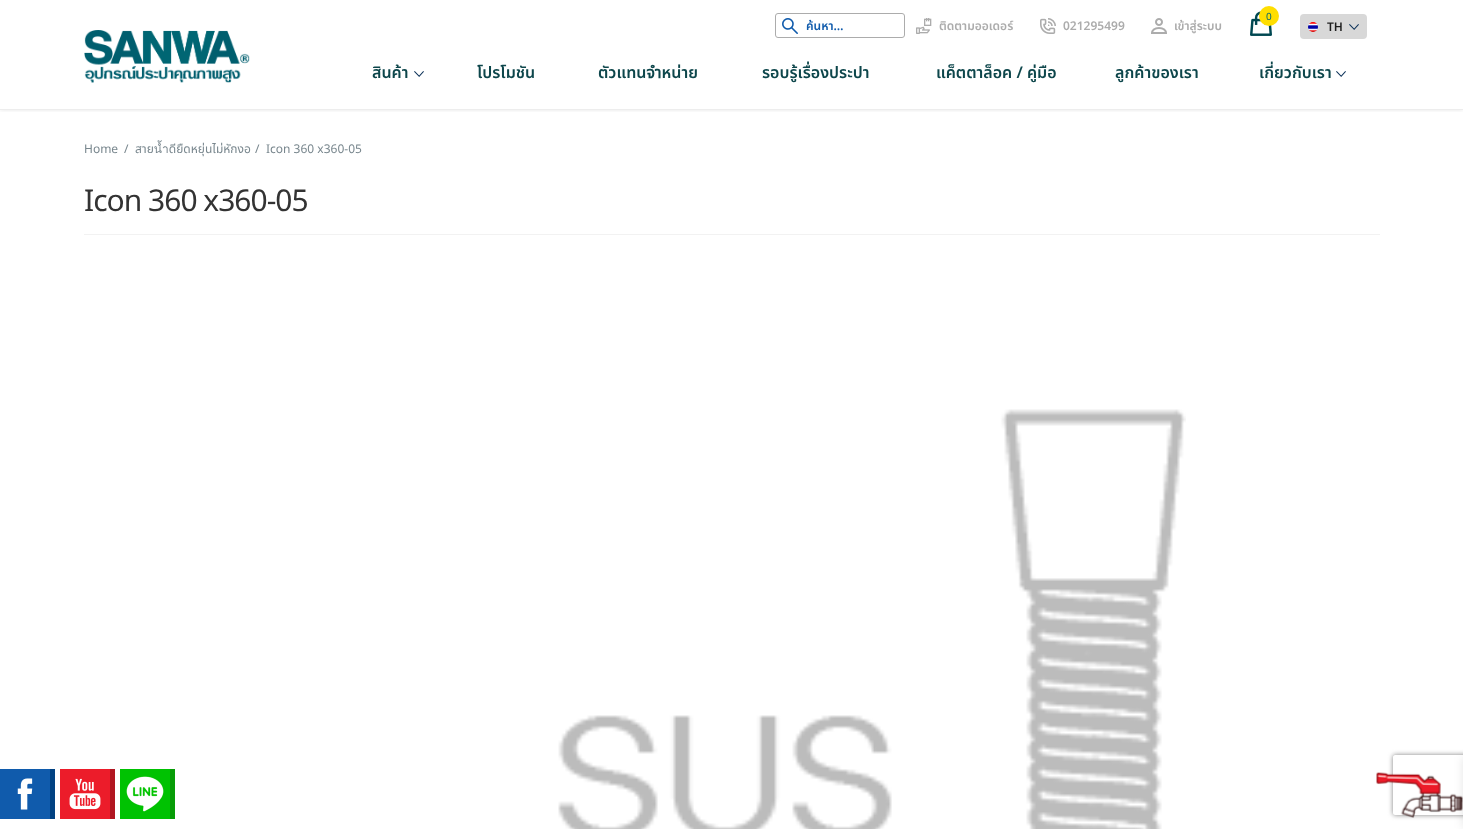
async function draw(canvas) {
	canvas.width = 1463;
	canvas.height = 829;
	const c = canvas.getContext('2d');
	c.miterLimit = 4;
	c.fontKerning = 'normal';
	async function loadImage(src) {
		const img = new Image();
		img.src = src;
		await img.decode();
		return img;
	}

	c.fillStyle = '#fff';
	c.fillRect(0, 0, 1463, 829);
	c.save();
	c.beginPath();
	c.rect(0, 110, 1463, 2);
	c.clip();
	c.fillStyle = '#0000001a';
	c.filter = 'blur(2px)';
	c.beginPath();
	c.rect(0, 0, 1463, 110);
	c.fill();
	c.filter = 'none';
	c.restore();
	c.fillStyle = '#ededed';
	c.fillRect(0, 109, 1463, 1);
	c.drawImage(await loadImage('img1.png'), 84, 30, 166, 53);
	c.drawImage(await loadImage('img2.png'), 1250, 11, 22, 25);
	c.fillStyle = '#ffde00';
	c.beginPath();
	c.arc(1269, 16, 10, 0, 2 * Math.PI);
	c.fill();
	c.font = '10px Noto Sans Thai';
	c.fillStyle = '#006674';
	c.fillText('0', 1266, 20);
	c.beginPath();
	c.roundRect(775.5, 13.5, 129, 24, 2.5);
	c.strokeStyle = '#acacac';
	c.stroke();
	c.drawImage(await loadImage('img3.png'), 782, 18, 16, 16);
	c.save();
	c.beginPath();
	c.rect(806, 17, 84, 18);
	c.clip();
	c.font = '600 12px Noto Sans Thai';
	c.fillStyle = '#105bac';
	c.fillText('ค้นหา…', 806, 30);
	c.restore();
	c.drawImage(await loadImage('img4.png'), 916, 18, 16, 16);
	c.font = '600 12px Noto Sans Thai';
	c.fillStyle = '#acacac';
	c.fillText('ติดตามออเดอร์', 939, 30);
	c.drawImage(await loadImage('img5.png'), 1040, 18, 16, 16);
	c.fillText('021295499', 1063, 30);
	c.drawImage(await loadImage('img6.png'), 1151, 18, 16, 16);
	c.fillText('เข้าสู่ระบบ', 1174, 30);
	c.fillStyle = '#d8d8d8';
	c.beginPath();
	c.roundRect(1300, 14, 67, 25, 4);
	c.fill();
	c.drawImage(await loadImage('img7.png'), 1308, 22, 10, 10);
	c.fillStyle = '#1e1e1e';
	c.fillText('TH', 1327, 31);
	c.drawImage(await loadImage('img8.png'), 1349, 24, 10, 6);
	c.font = '600 16px Noto Sans Thai';
	c.fillStyle = '#0d464b';
	c.fillText('สินค้า', 372, 78);
	c.drawImage(await loadImage('img9.png'), 414, 71, 10, 6);
	for (const [text, x, y] of [
		['โปรโมชัน', 477, 78],
		['ตัวแทนจำหน่าย', 598, 78],
		['รอบรู้เรื่องประปา', 762, 78],
		['แค็ตตาล็อค / คู่มือ', 936, 78],
		['ลูกค้าของเรา', 1115, 78],
		['เกี่ยวกับเรา', 1259, 78],
	]) {
		c.fillText(text, x, y);
	}
	c.drawImage(await loadImage('img9.png'), 1336, 71, 10, 6);
	c.font = '12px Noto Sans Thai';
	c.fillStyle = '#79878e';
	for (const [text, x, y] of [
		['Home', 84, 153],
		['/', 124, 153],
		['สายน้ำดียืดหยุ่นไม่หักงอ', 135, 153],
		['/', 255, 153],
		['Icon 360 x360-05', 266, 153],
	]) {
		c.fillText(text, x, y);
	}
	c.fillStyle = '#f2f2f2';
	c.fillRect(84, 234, 1296, 1);
	c.letterSpacing = '-1px';
	c.font = '30px Noto Sans Thai';
	c.fillStyle = '#333';
	c.fillText('Icon 360 x360-05', 84, 211);
	c.drawImage(await loadImage('img10.png'), 558, 409, 628, 420);
	c.drawImage(await loadImage('img11.png'), 0, 769, 55, 50);
	c.drawImage(await loadImage('img12.png'), 60, 769, 55, 50);
	c.drawImage(await loadImage('img13.png'), 120, 769, 55, 50);
	c.save();
	c.beginPath();
	c.moveTo(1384, 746);
	c.lineTo(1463, 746);
	c.lineTo(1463, 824);
	c.lineTo(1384, 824);
	c.closePath();
	c.moveTo(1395, 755);
	c.lineTo(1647, 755);
	c.bezierCurveTo(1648, 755, 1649, 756, 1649, 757);
	c.lineTo(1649, 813);
	c.bezierCurveTo(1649, 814, 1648, 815, 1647, 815);
	c.lineTo(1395, 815);
	c.bezierCurveTo(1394, 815, 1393, 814, 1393, 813);
	c.lineTo(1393, 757);
	c.bezierCurveTo(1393, 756, 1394, 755, 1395, 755);
	c.closePath();
	c.clip('evenodd');
	c.fillStyle = '#808080';
	c.filter = 'blur(2.5px)';
	c.beginPath();
	c.roundRect(1393, 755, 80, 60, 2);
	c.fill();
	c.filter = 'none';
	c.restore();
	c.drawImage(await loadImage('img14.png'), 1376, 772, 87, 46);
	c.fillStyle = '#0000001a';
	c.filter = 'blur(5px)';
	c.beginPath();
	c.rect(1463, 757, 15, 71);
	c.fill();
	c.filter = 'none';
}

draw(document.querySelector('canvas'));
